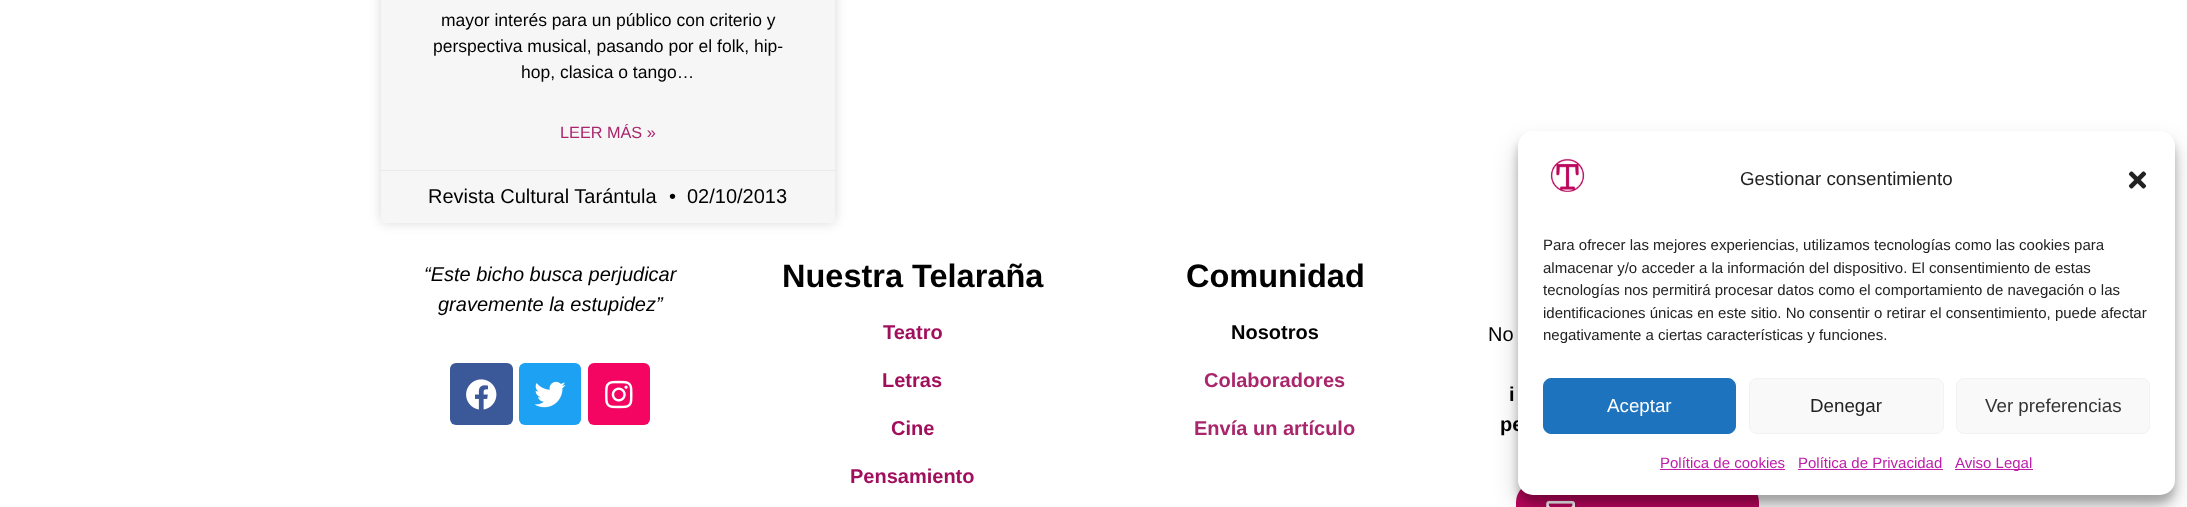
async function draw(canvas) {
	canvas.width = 2187;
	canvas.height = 507;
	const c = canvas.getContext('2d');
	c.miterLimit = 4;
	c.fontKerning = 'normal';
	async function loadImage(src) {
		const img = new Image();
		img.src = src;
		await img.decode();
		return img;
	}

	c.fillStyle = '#fff';
	c.fillRect(0, 0, 2187, 507);
	c.fillStyle = '#00000026';
	c.filter = 'blur(6px)';
	c.beginPath();
	c.roundRect(381, -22, 454, 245, 4);
	c.fill();
	c.filter = 'none';
	c.fillStyle = '#f6f6f6';
	c.beginPath();
	c.roundRect(381, -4, 454, 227, 4);
	c.fill();
	c.font = '17.5px Liberation Sans';
	c.fillStyle = '#010101';
	for (const [text, x, y] of [
		['mayor interés para un público con criterio y', 441, 26],
		['perspectiva musical, pasando por el folk, hip-', 433, 52],
		['hop, clasica o tango…', 521, 78],
	]) {
		c.fillText(text, x, y);
	}
	c.font = '16.25px Liberation Sans';
	c.fillStyle = '#a9266c';
	c.fillText('LEER MÁS »', 560, 138);
	c.fillStyle = '#eaeaea';
	c.fillRect(381, 170, 454, 1);
	c.font = '20px Liberation Sans';
	c.fillStyle = '#010101';
	for (const [text, x, y] of [
		['Revista Cultural Tarántula', 428, 203],
		['•', 669, 203],
		['02/10/2013', 687, 203],
	]) {
		c.fillText(text, x, y);
	}
	c.font = 'italic 20px Liberation Sans';
	c.fillText('“Este bicho busca perjudicar', 424, 281);
	c.fillText('gravemente la estupidez”', 438, 311);
	c.fillStyle = '#3b5998';
	c.beginPath();
	c.roundRect(450, 363, 63, 62, 6);
	c.fill();
	c.drawImage(await loadImage('img1.png'), 466, 379, 31, 31);
	c.fillStyle = '#1da1f2';
	c.beginPath();
	c.roundRect(519, 363, 62, 62, 6);
	c.fill();
	c.drawImage(await loadImage('img2.png'), 534, 381, 32, 27);
	c.fillStyle = '#f30561';
	c.beginPath();
	c.roundRect(588, 363, 62, 62, 6);
	c.fill();
	c.drawImage(await loadImage('img3.png'), 605, 380, 28, 29);
	c.font = 'bold 32.5px Liberation Sans';
	c.fillStyle = '#010101';
	c.fillText('Nuestra Telaraña', 782, 287);
	c.font = 'bold 20px Liberation Sans';
	c.fillStyle = '#a10f5c';
	for (const [text, x, y] of [
		['Teatro', 883, 339],
		['Letras', 882, 387],
		['Cine', 891, 435],
		['Pensamiento', 850, 483],
	]) {
		c.fillText(text, x, y);
	}
	c.font = 'bold 32.5px Liberation Sans';
	c.fillStyle = '#010101';
	c.fillText('Comunidad', 1186, 287);
	c.font = 'bold 20px Liberation Sans';
	c.fillText('Nosotros', 1231, 339);
	c.fillStyle = '#a9266c';
	c.fillText('Colaboradores', 1204, 387);
	c.fillText('Envía un artículo', 1194, 435);
	c.font = '20px Liberation Sans';
	c.fillStyle = '#010101';
	c.fillText('No', 1488, 341);
	c.font = 'bold 20px Liberation Sans';
	c.fillText('i', 1509, 401);
	c.fillText('pe', 1500, 431);
	c.fillStyle = '#bd065e';
	c.beginPath();
	c.roundRect(1516, 483, 243, 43, 19);
	c.fill();
	c.drawImage(await loadImage('img4.png'), 1546, 500, 29, 7);
	c.fillStyle = '#0000003b';
	c.filter = 'blur(4px)';
	c.beginPath();
	c.roundRect(1518, 139, 657, 364, 15);
	c.fill();
	c.filter = 'none';
	c.fillStyle = '#00000030';
	c.filter = 'blur(12.5px)';
	c.beginPath();
	c.roundRect(1518, 144, 657, 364, 15);
	c.fill();
	c.filter = 'none';
	c.fillStyle = '#fff';
	c.beginPath();
	c.roundRect(1518, 131, 657, 364, 15);
	c.fill();
	c.drawImage(await loadImage('img5.png'), 1550, 158, 35, 35);
	c.font = '18.75px Liberation Sans';
	c.fillStyle = '#222';
	c.fillText('Gestionar consentimiento', 1740, 185);
	c.drawImage(await loadImage('img6.png'), 2128, 171, 19, 18);
	c.font = '15px Liberation Sans';
	for (const [text, x, y] of [
		['Para ofrecer las mejores experiencias, utilizamos tecnologías como las cookies para', 1543, 250],
		['almacenar y/o acceder a la información del dispositivo. El consentimiento de estas', 1543, 273],
		['tecnologías nos permitirá procesar datos como el comportamiento de navegación o las', 1543, 295],
		['identificaciones únicas en este sitio. No consentir o retirar el consentimiento, puede afectar', 1543, 318],
		['negativamente a ciertas características y funciones.', 1543, 340],
	]) {
		c.fillText(text, x, y);
	}
	c.fillStyle = '#1e73be';
	c.beginPath();
	c.roundRect(1543.5, 378.5, 192, 55, 7.5);
	c.fill();
	c.strokeStyle = '#1e73be';
	c.stroke();
	c.font = '18.75px Liberation Sans';
	c.fillStyle = '#fff';
	c.fillText('Aceptar', 1607, 412);
	c.fillStyle = '#f9f9f9';
	c.beginPath();
	c.roundRect(1749.5, 378.5, 194, 55, 7.5);
	c.fill();
	c.strokeStyle = '#f2f2f2';
	c.stroke();
	c.fillStyle = '#222';
	c.fillText('Denegar', 1810, 412);
	c.fillStyle = '#f9f9f9';
	c.beginPath();
	c.roundRect(1956.5, 378.5, 193, 55, 7.5);
	c.fill();
	c.stroke();
	c.fillStyle = '#333';
	c.fillText('Ver preferencias', 1985, 412);
	c.font = '15px Liberation Sans';
	c.fillStyle = '#be1ea9';
	c.fillText('Política de cookies', 1660, 468);
	c.fillRect(1660, 469, 125, 1);
	c.fillText('Política de Privacidad', 1798, 468);
	c.fillRect(1798, 469, 145, 1);
	c.fillRect(1955, 469, 78, 1);
	c.fillText('Aviso Legal', 1955, 468);
}

draw(document.querySelector('canvas'));
